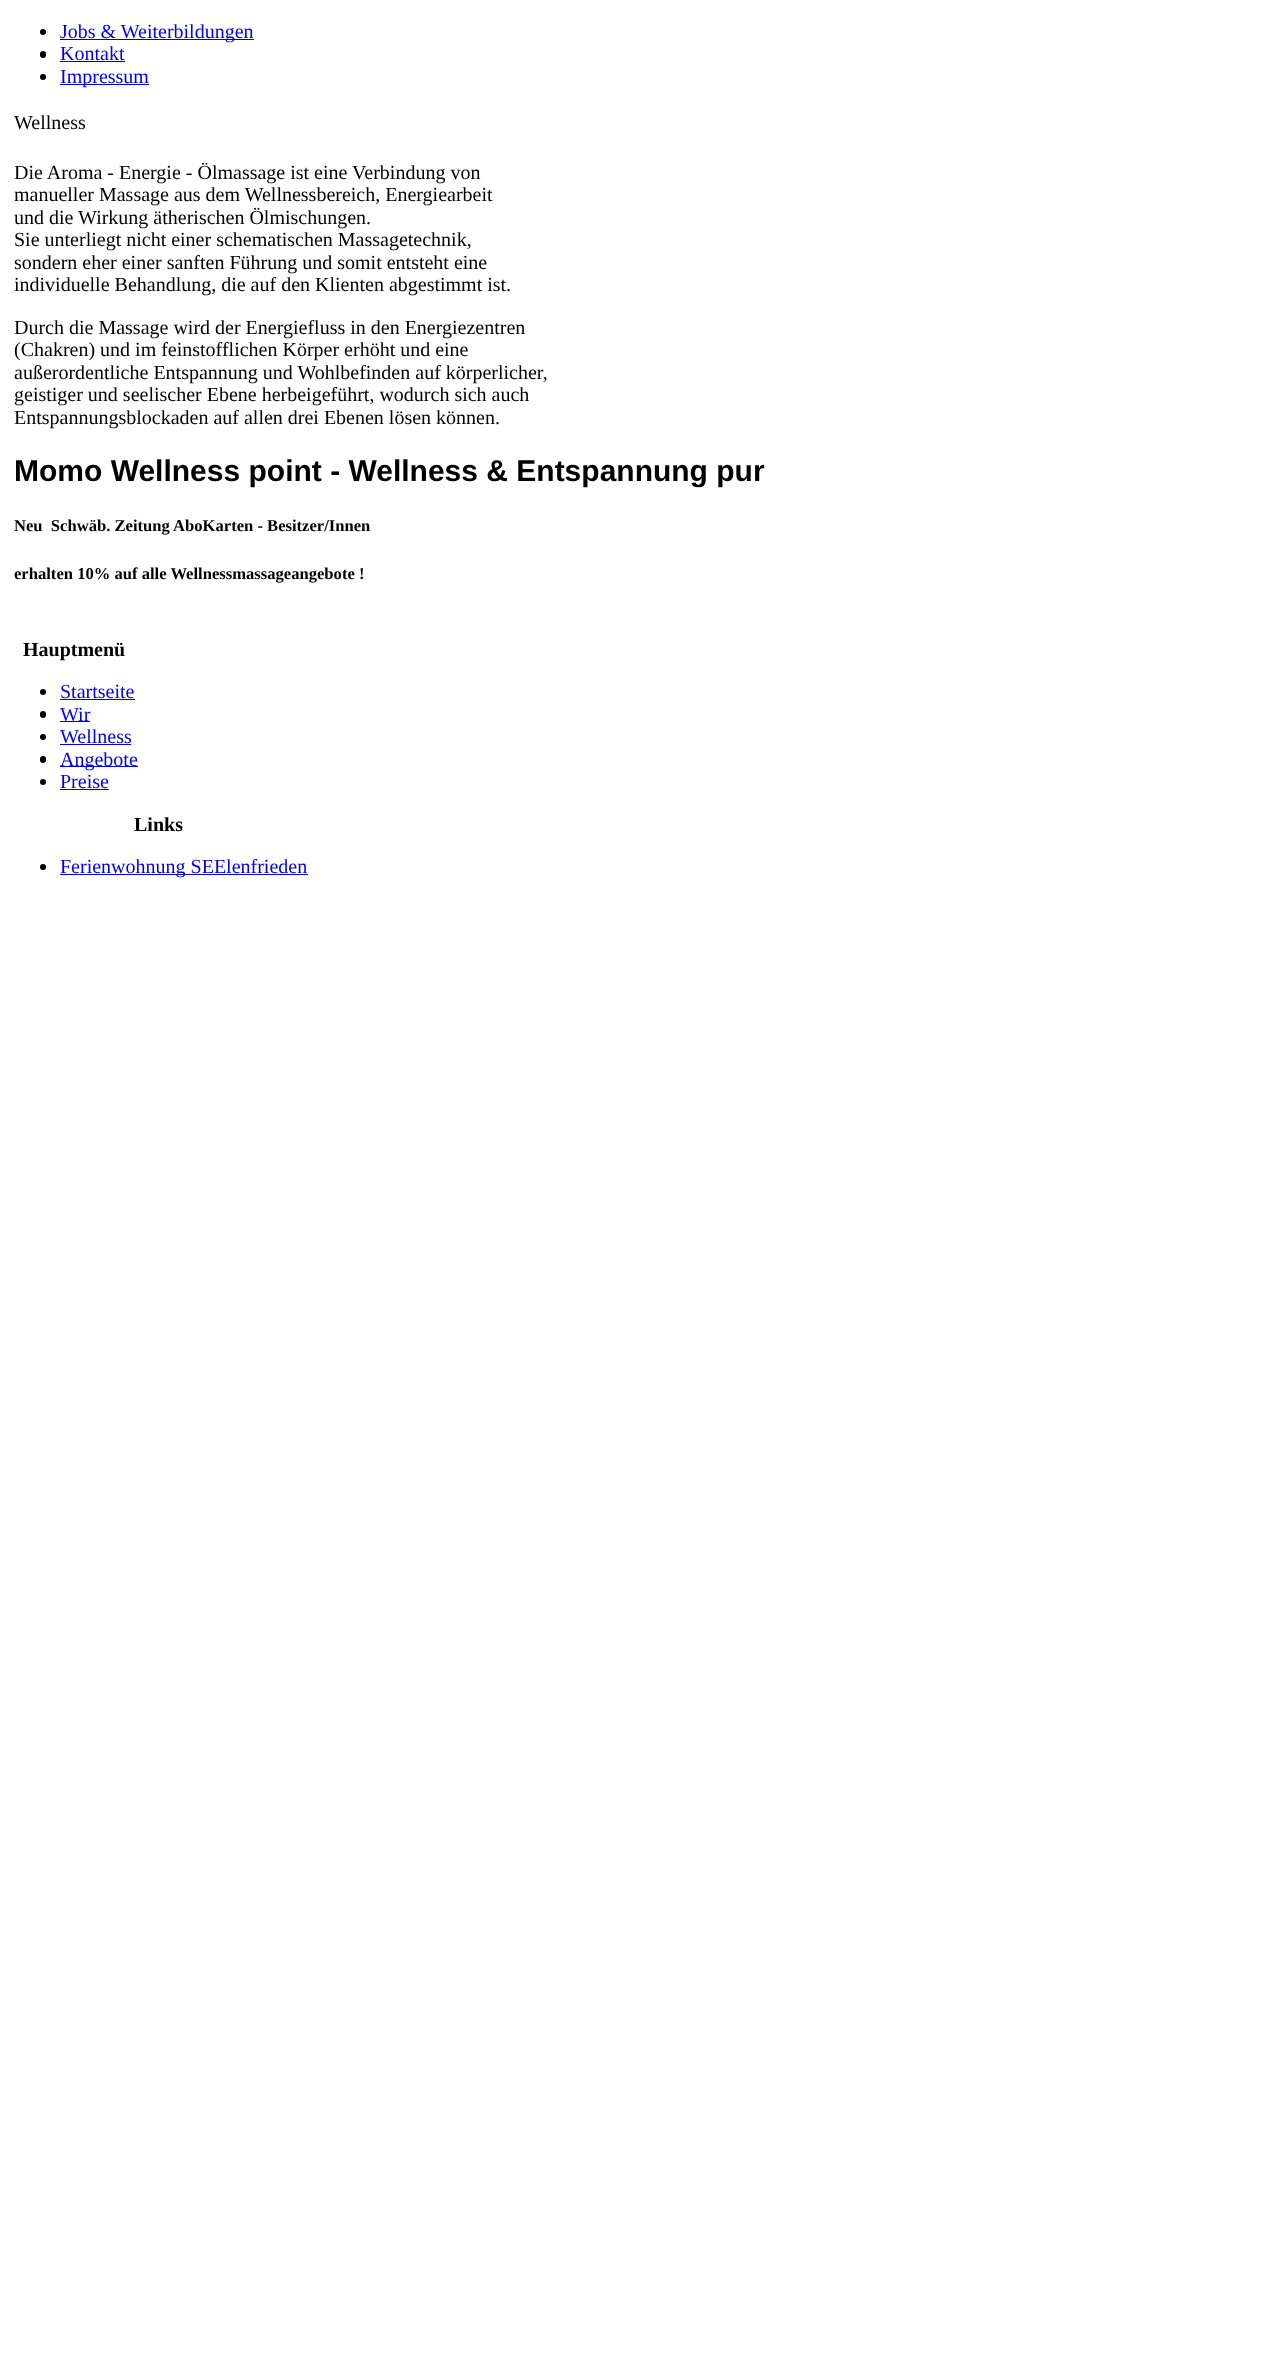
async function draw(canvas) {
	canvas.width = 1281;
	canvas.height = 2360;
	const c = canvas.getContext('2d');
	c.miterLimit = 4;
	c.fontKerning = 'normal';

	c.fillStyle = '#fff';
	c.fillRect(0, 0, 1281, 2360);
	c.fillStyle = '#000';
	c.beginPath();
	c.arc(43, 32, 3, 0, 2 * Math.PI);
	c.fill();
	c.fillStyle = '#00e';
	c.fillRect(60, 39, 194, 1);
	c.font = '20px Liberation Serif';
	c.fillText('Jobs & Weiterbildungen', 60, 38);
	c.fillStyle = '#000';
	c.beginPath();
	c.roundRect(40, 51, 6, 7, 3);
	c.fill();
	c.fillStyle = '#00e';
	c.fillText('Kontakt', 60, 60);
	c.fillRect(60, 61, 65, 1);
	c.fillStyle = '#000';
	c.beginPath();
	c.arc(43, 77, 3, 0, 2 * Math.PI);
	c.fill();
	c.fillStyle = '#00e';
	c.fillRect(60, 84, 89, 1);
	c.fillText('Impressum', 60, 83);
	c.fillStyle = '#000';
	for (const [text, x, y] of [
		['Wellness', 14, 129],
		['Die Aroma - Energie - Ölmassage ist eine Verbindung von', 14, 179],
		['manueller Massage aus dem Wellnessbereich, Energiearbeit', 14, 201],
		['und die Wirkung ätherischen Ölmischungen.', 14, 224],
		['Sie unterliegt nicht einer schematischen Massagetechnik,', 14, 246],
		['sondern eher einer sanften Führung und somit entsteht eine', 14, 269],
		['individuelle Behandlung, die auf den Klienten abgestimmt ist.', 14, 291],
		['Durch die Massage wird der Energiefluss in den Energiezentren', 14, 334],
		['(Chakren) und im feinstofflichen Körper erhöht und eine', 14, 356],
		['außerordentliche Entspannung und Wohlbefinden auf körperlicher,', 14, 379],
		['geistiger und seelischer Ebene herbeigeführt, wodurch sich auch', 14, 401],
		['Entspannungsblockaden auf allen drei Ebenen lösen können.', 14, 424],
	]) {
		c.fillText(text, x, y);
	}
	c.font = 'bold 30px Liberation Sans';
	c.fillText('Momo Wellness point - Wellness & Entspannung pur', 14, 481);
	c.font = 'bold 16.6px Liberation Serif';
	c.fillText('Neu  Schwäb. Zeitung AboKarten - Besitzer/Innen', 14, 531);
	c.fillText('erhalten 10% auf alle Wellnessmassageangebote !', 14, 579);
	c.font = 'bold 20px Liberation Serif';
	c.fillText('Hauptmenü', 23, 656);
	c.beginPath();
	c.arc(43, 692, 3, 0, 2 * Math.PI);
	c.fill();
	c.font = '20px Liberation Serif';
	c.fillStyle = '#00e';
	c.fillText('Startseite', 60, 698);
	c.fillRect(60, 699, 75, 1);
	c.fillStyle = '#000';
	c.beginPath();
	c.roundRect(40, 711, 6, 7, 3);
	c.fill();
	c.fillStyle = '#00e';
	c.fillRect(60, 721, 30, 1);
	c.fillText('Wir', 60, 721);
	c.fillStyle = '#000';
	c.beginPath();
	c.arc(43, 737, 3, 0, 2 * Math.PI);
	c.fill();
	c.fillStyle = '#00e';
	c.fillText('Wellness', 60, 743);
	c.fillRect(60, 744, 71, 1);
	c.fillStyle = '#000';
	c.beginPath();
	c.roundRect(40, 756, 6, 7, 3);
	c.fill();
	c.fillStyle = '#00e';
	c.fillRect(60, 766, 78, 1);
	c.fillText('Angebote', 60, 766);
	c.fillStyle = '#000';
	c.beginPath();
	c.arc(43, 782, 3, 0, 2 * Math.PI);
	c.fill();
	c.fillStyle = '#00e';
	c.fillText('Preise', 60, 788);
	c.fillRect(60, 789, 49, 1);
	c.font = 'bold 20px Liberation Serif';
	c.fillStyle = '#000';
	c.fillText('Links', 134, 831);
	c.beginPath();
	c.arc(43, 867, 3, 0, 2 * Math.PI);
	c.fill();
	c.fillStyle = '#00e';
	c.fillRect(60, 874, 248, 1);
	c.font = '20px Liberation Serif';
	c.fillText('Ferienwohnung SEElenfrieden', 60, 873);
}

draw(document.querySelector('canvas'));
